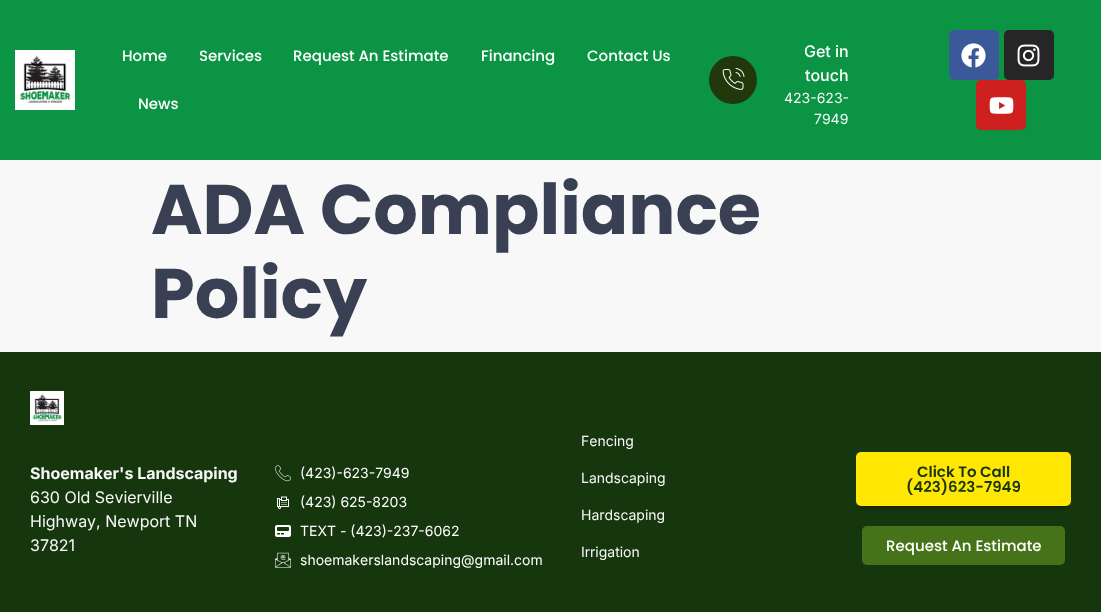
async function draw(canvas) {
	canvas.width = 1101;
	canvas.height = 612;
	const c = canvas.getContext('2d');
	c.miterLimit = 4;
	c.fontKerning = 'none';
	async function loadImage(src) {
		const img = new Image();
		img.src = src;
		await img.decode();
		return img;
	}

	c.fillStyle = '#f8f8f8';
	c.fillRect(0, 0, 1101, 612);
	c.fillStyle = '#0b9444';
	c.fillRect(0, 0, 1101, 160);
	c.drawImage(await loadImage('img1.png'), 15, 50, 60, 60);
	c.font = '500 15px Poppins';
	c.fillStyle = '#fff';
	for (const [text, x, y] of [
		['Home', 122, 61],
		['Services', 199, 61],
		['Request An Estimate', 293, 61],
		['Financing', 481, 61],
		['Contact Us', 587, 61],
		['News', 138, 109],
	]) {
		c.fillText(text, x, y);
	}
	c.fillStyle = '#21380a';
	c.beginPath();
	c.arc(733, 80, 24, 0, 2 * Math.PI);
	c.fill();
	c.drawImage(await loadImage('img2.png'), 722, 68, 23, 22);
	c.font = '500 16px Inter';
	c.fillStyle = '#fff';
	c.fillText('Get in', 804, 57);
	c.fillText('touch', 805, 81);
	c.font = '14px Inter';
	c.fillStyle = '#f8f8f8';
	c.fillText('423-623-', 784, 103);
	c.fillText('7949', 814, 124);
	c.fillStyle = '#3b5998';
	c.beginPath();
	c.roundRect(949, 30, 50, 50, 5);
	c.fill();
	c.drawImage(await loadImage('img3.png'), 961, 43, 25, 25);
	c.fillStyle = '#262626';
	c.beginPath();
	c.roundRect(1004, 30, 50, 50, 5);
	c.fill();
	c.drawImage(await loadImage('img4.png'), 1017, 44, 23, 23);
	c.fillStyle = '#cd201f';
	c.beginPath();
	c.roundRect(976, 80, 50, 50, 5);
	c.fill();
	c.drawImage(await loadImage('img5.png'), 989, 97, 25, 17);
	c.font = 'bold 70px Poppins';
	c.fillStyle = '#394054';
	c.fillText('ADA Compliance', 151, 234);
	c.fillText('Policy', 151, 318);
	c.fillStyle = '#16360d';
	c.fillRect(0, 352, 1101, 260);
	c.drawImage(await loadImage('img6.png'), 30, 391, 34, 34);
	c.font = 'bold 16px Inter';
	c.fillStyle = '#f8f8f8';
	c.fillText('Shoemaker\'s Landscaping', 30, 479);
	c.font = '16px Inter';
	for (const [text, x, y] of [
		['630 Old Sevierville', 30, 503],
		['Highway, Newport TN', 30, 527],
		['37821', 30, 551],
	]) {
		c.fillText(text, x, y);
	}
	c.drawImage(await loadImage('img7.png'), 275, 465, 16, 17);
	c.font = '14px Inter';
	c.fillStyle = '#fff';
	c.fillText('(423)-623-7949', 300, 478);
	c.drawImage(await loadImage('img8.png'), 277, 496, 12, 13);
	c.fillText('(423) 625-8203', 300, 507);
	c.drawImage(await loadImage('img9.png'), 275, 525, 16, 12);
	c.fillText('TEXT - (423)-237-6062', 300, 536);
	c.drawImage(await loadImage('img10.png'), 275, 552, 16, 16);
	c.fillText('shoemakerslandscaping@gmail.com', 300, 565);
	c.fillStyle = '#f8f8f8';
	for (const [text, x, y] of [
		['Fencing', 581, 446],
		['Landscaping', 581, 483],
		['Hardscaping', 581, 520],
		['Irrigation', 581, 557],
	]) {
		c.fillText(text, x, y);
	}
	c.fillStyle = '#00000080';
	c.filter = 'blur(2.5px)';
	c.beginPath();
	c.rect(861, 463, 205, 44);
	c.fill();
	c.filter = 'none';
	c.fillStyle = '#ffe603';
	c.beginPath();
	c.roundRect(856, 452, 215, 54, 5);
	c.fill();
	c.font = '600 15px Poppins';
	c.fillStyle = '#16360d';
	c.fillText('Click To Call', 917, 477);
	c.fillText('(423)623-7949', 906, 492);
	c.fillStyle = '#467319';
	c.beginPath();
	c.roundRect(862, 526, 203, 39, 5);
	c.fill();
	c.font = '500 15px Poppins';
	c.fillStyle = '#fff';
	c.fillText('Request An Estimate', 886, 551);
}

draw(document.querySelector('canvas'));
